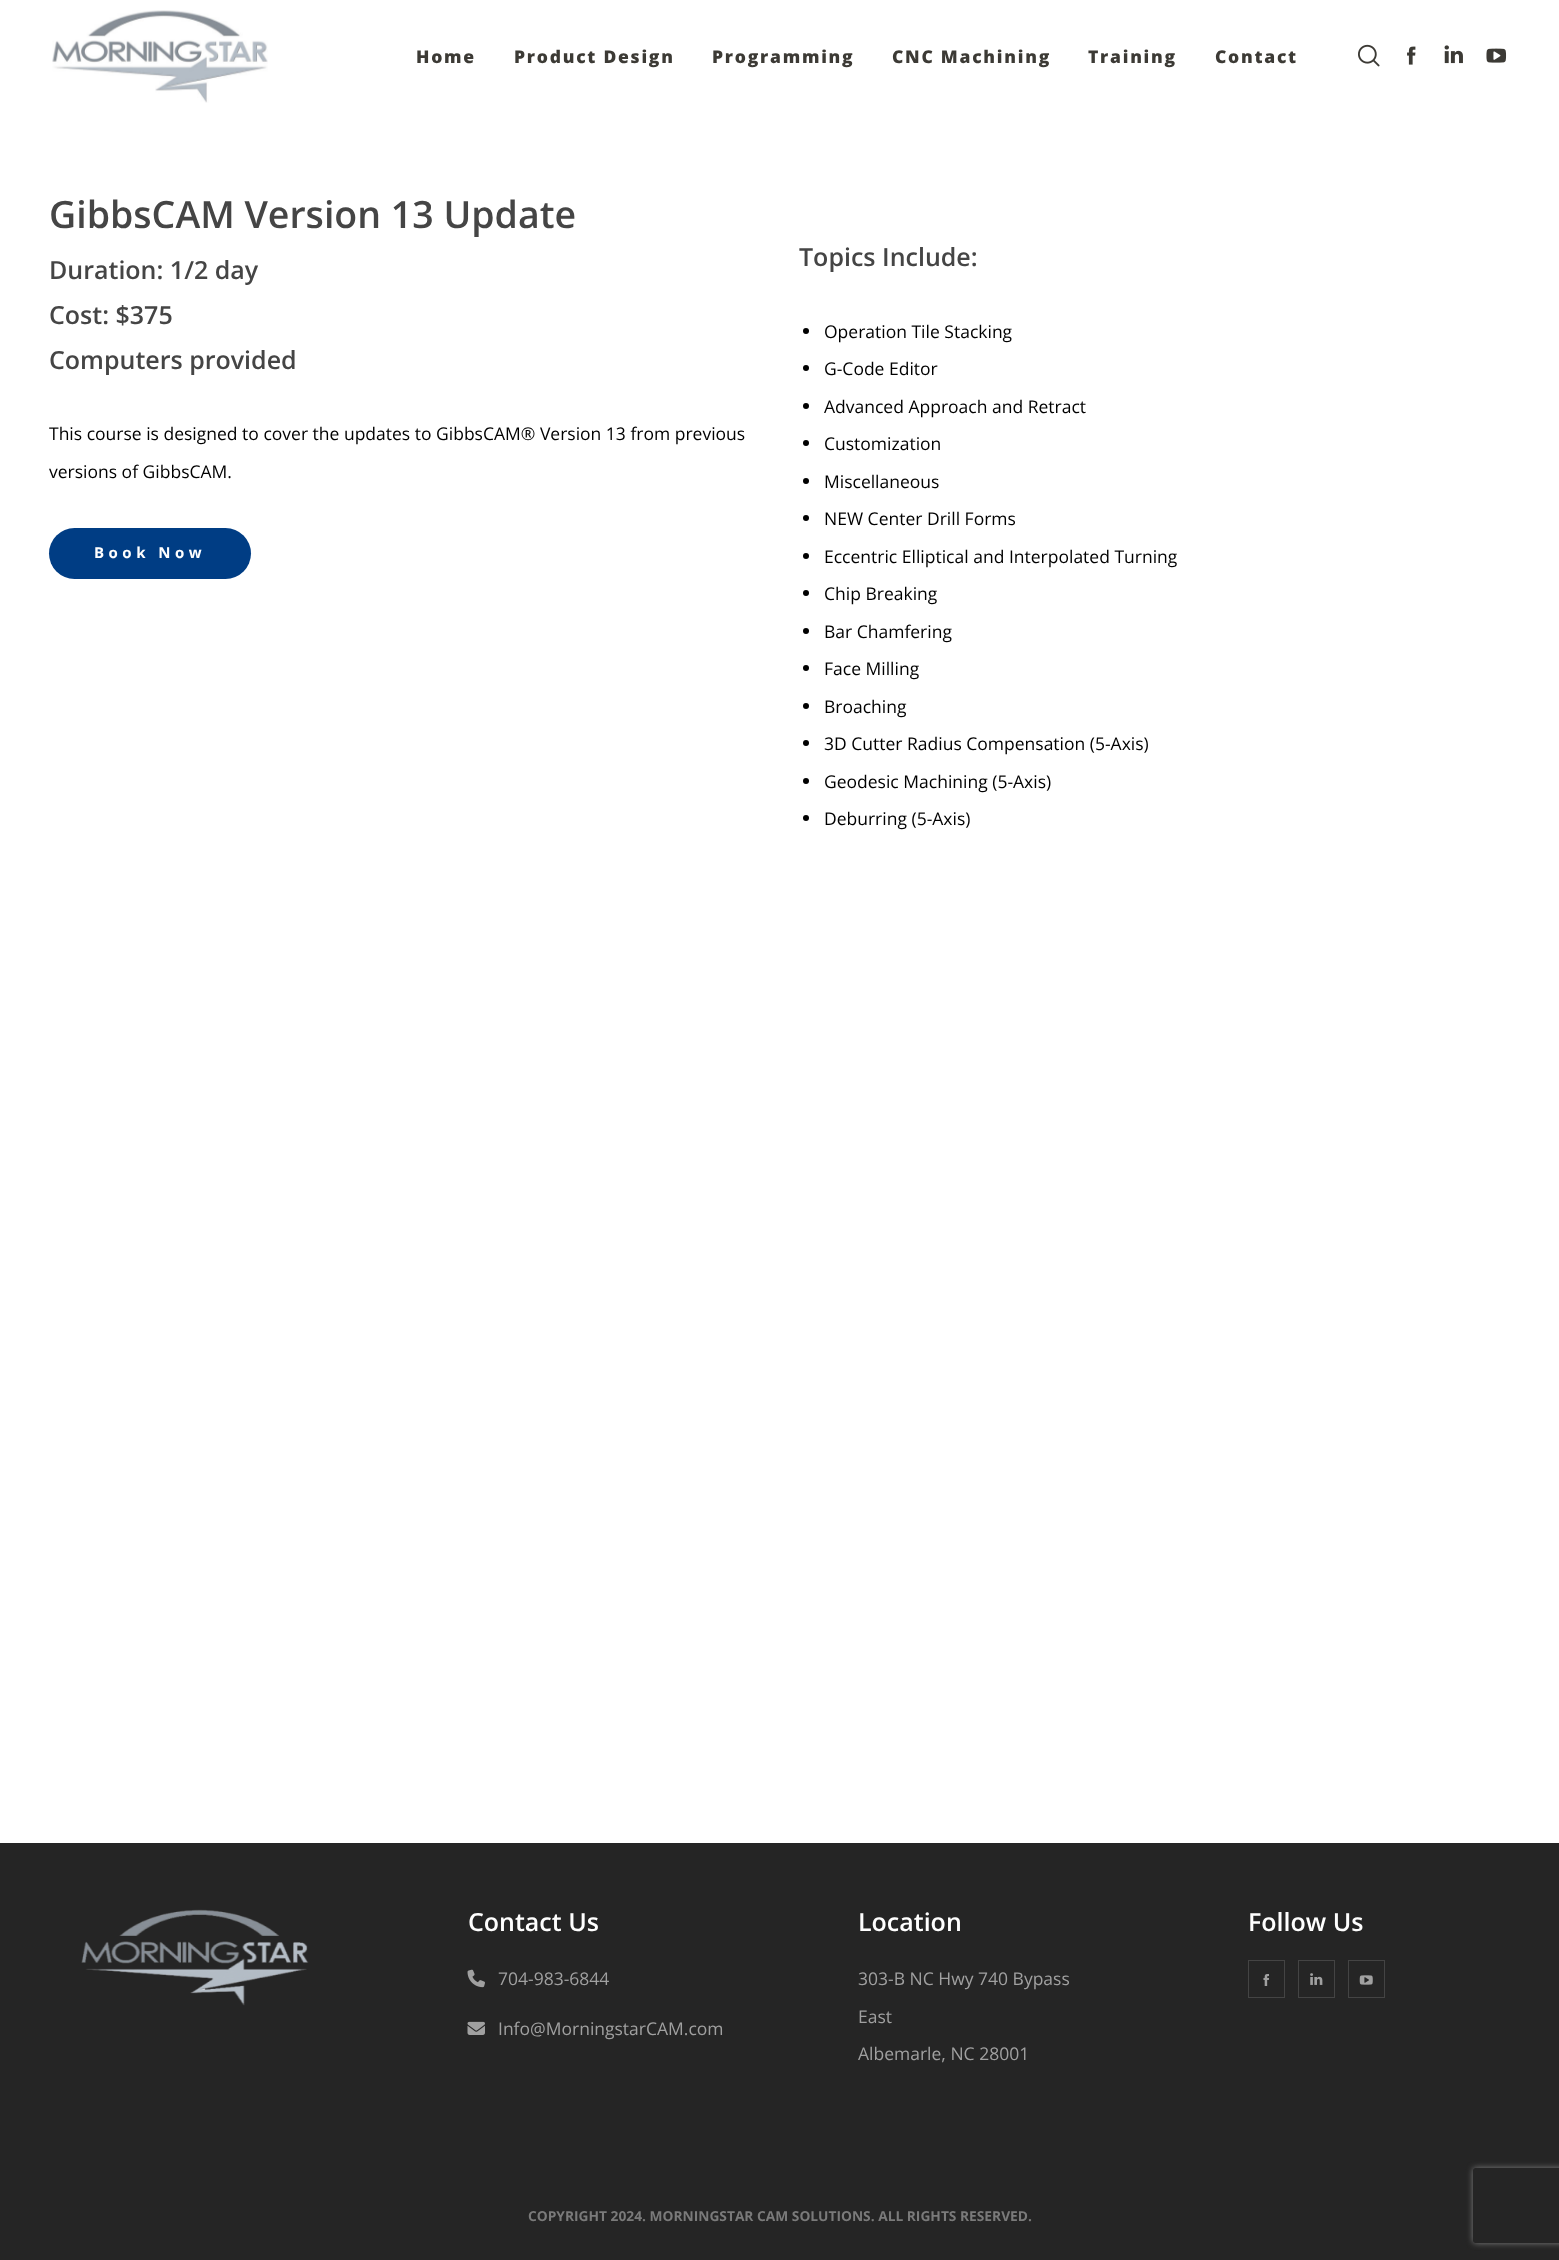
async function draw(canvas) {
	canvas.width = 1559;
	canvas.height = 2260;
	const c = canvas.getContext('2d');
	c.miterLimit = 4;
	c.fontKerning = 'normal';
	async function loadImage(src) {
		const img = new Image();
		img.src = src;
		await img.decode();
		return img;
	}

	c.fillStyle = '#fff';
	c.fillRect(0, 0, 1559, 2260);
	c.drawImage(await loadImage('img1.png'), 52, 10, 216, 93);
	c.letterSpacing = '1.75px';
	c.font = '800 17.5px Open Sans';
	c.fillStyle = '#3c3a35';
	for (const [text, x, y] of [
		['Home', 416, 63],
		['Product Design', 514, 63],
		['Programming', 712, 63],
		['CNC Machining', 892, 63],
		['Training', 1088, 63],
		['Contact', 1215, 63],
	]) {
		c.fillText(text, x, y);
	}
	c.drawImage(await loadImage('img2.png'), 1358, 44, 22, 23);
	c.drawImage(await loadImage('img3.png'), 1407, 46, 9, 19);
	c.drawImage(await loadImage('img4.png'), 1444, 45, 19, 19);
	c.drawImage(await loadImage('img5.png'), 1486, 48, 21, 15);
	c.letterSpacing = '0px';
	c.font = '600 37.5px Open Sans';
	c.fillStyle = '#454545';
	c.fillText('GibbsCAM Version 13 Update', 49, 228);
	c.font = '600 25px Open Sans';
	for (const [text, x, y] of [
		['Duration: 1/2 day', 49, 279],
		['Cost: $375', 49, 324],
		['Computers provided', 49, 369],
	]) {
		c.fillText(text, x, y);
	}
	c.font = '17.5px Open Sans';
	c.fillStyle = '#000';
	c.fillText('This course is designed to cover the updates to GibbsCAM® Version 13 from previous', 49, 440);
	c.fillText('versions of GibbsCAM.', 49, 478);
	c.fillStyle = '#003d84';
	c.beginPath();
	c.roundRect(49, 528, 202, 51, 25.5);
	c.fill();
	c.letterSpacing = '4.5px';
	c.font = 'bold 15px Open Sans';
	c.fillStyle = '#fff';
	c.fillText('Book Now', 94, 558);
	c.letterSpacing = '0px';
	c.font = '600 25px Open Sans';
	c.fillStyle = '#454545';
	c.fillText('Topics Include:', 799, 266);
	c.fillStyle = '#000';
	c.beginPath();
	c.arc(806, 331, 3, 0, 2 * Math.PI);
	c.fill();
	c.font = '17.5px Open Sans';
	c.fillText('Operation Tile Stacking', 824, 338);
	c.beginPath();
	c.arc(806, 368, 3, 0, 2 * Math.PI);
	c.fill();
	c.fillText('G-Code Editor', 824, 375);
	c.beginPath();
	c.arc(806, 406, 3, 0, 2 * Math.PI);
	c.fill();
	c.fillText('Advanced Approach and Retract', 824, 413);
	c.beginPath();
	c.arc(806, 443, 3, 0, 2 * Math.PI);
	c.fill();
	c.fillText('Customization', 824, 450);
	c.beginPath();
	c.arc(806, 481, 3, 0, 2 * Math.PI);
	c.fill();
	c.fillText('Miscellaneous', 824, 488);
	c.beginPath();
	c.arc(806, 518, 3, 0, 2 * Math.PI);
	c.fill();
	c.fillText('NEW Center Drill Forms', 824, 525);
	c.beginPath();
	c.arc(806, 556, 3, 0, 2 * Math.PI);
	c.fill();
	c.fillText('Eccentric Elliptical and Interpolated Turning', 824, 563);
	c.beginPath();
	c.arc(806, 593, 3, 0, 2 * Math.PI);
	c.fill();
	c.fillText('Chip Breaking', 824, 600);
	c.beginPath();
	c.arc(806, 631, 3, 0, 2 * Math.PI);
	c.fill();
	c.fillText('Bar Chamfering', 824, 638);
	c.beginPath();
	c.arc(806, 668, 3, 0, 2 * Math.PI);
	c.fill();
	c.fillText('Face Milling', 824, 675);
	c.beginPath();
	c.arc(806, 706, 3, 0, 2 * Math.PI);
	c.fill();
	c.fillText('Broaching', 824, 713);
	c.beginPath();
	c.arc(806, 743, 3, 0, 2 * Math.PI);
	c.fill();
	c.fillText('3D Cutter Radius Compensation (5-Axis)', 824, 750);
	c.beginPath();
	c.arc(806, 781, 3, 0, 2 * Math.PI);
	c.fill();
	c.fillText('Geodesic Machining (5-Axis)', 824, 788);
	c.beginPath();
	c.arc(806, 818, 3, 0, 2 * Math.PI);
	c.fill();
	c.fillText('Deburring (5-Axis)', 824, 825);
	c.fillStyle = '#252525';
	c.fillRect(0, 1843, 1559, 417);
	c.drawImage(await loadImage('img6.png'), 81, 1909, 228, 97);
	c.font = '600 25px Open Sans';
	c.fillStyle = '#fff';
	c.fillText('Contact Us', 468, 1931);
	c.drawImage(await loadImage('img7.png'), 467, 1969, 18, 19);
	c.font = '17.5px Open Sans';
	c.fillStyle = '#a0a0a0';
	c.fillText('704-983-6844', 498, 1985);
	c.drawImage(await loadImage('img8.png'), 467, 2021, 18, 14);
	c.fillText('Info@MorningstarCAM.com', 498, 2035);
	c.font = '600 25px Open Sans';
	c.fillStyle = '#fff';
	c.fillText('Location', 858, 1931);
	c.font = '17.5px Open Sans';
	c.fillStyle = '#a0a0a0';
	for (const [text, x, y] of [
		['303-B NC Hwy 740 Bypass', 858, 1985],
		['East', 858, 2023],
		['Albemarle, NC 28001', 858, 2060],
	]) {
		c.fillText(text, x, y);
	}
	c.font = '600 25px Open Sans';
	c.fillStyle = '#fff';
	c.fillText('Follow Us', 1248, 1931);
	c.strokeStyle = '#444';
	c.strokeRect(1248.5, 1960.5, 36, 37);
	c.drawImage(await loadImage('img9.png'), 1263, 1974, 6, 12);
	c.strokeRect(1298.5, 1960.5, 36, 37);
	c.drawImage(await loadImage('img10.png'), 1310, 1973, 13, 12);
	c.strokeRect(1348.5, 1960.5, 36, 37);
	c.drawImage(await loadImage('img11.png'), 1359, 1975, 14, 10);
	c.font = 'bold 13.75px Open Sans';
	c.fillStyle = '#7a7a7a';
	c.fillText('COPYRIGHT 2024. MORNINGSTAR CAM SOLUTIONS. ALL RIGHTS RESERVED.', 528, 2221);
	c.save();
	c.beginPath();
	c.moveTo(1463, 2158);
	c.lineTo(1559, 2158);
	c.lineTo(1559, 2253);
	c.lineTo(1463, 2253);
	c.closePath();
	c.moveTo(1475.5, 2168);
	c.lineTo(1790.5, 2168);
	c.bezierCurveTo(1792, 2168, 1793, 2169, 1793, 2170.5);
	c.lineTo(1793, 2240.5);
	c.bezierCurveTo(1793, 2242, 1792, 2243, 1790.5, 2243);
	c.lineTo(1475.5, 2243);
	c.bezierCurveTo(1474, 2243, 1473, 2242, 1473, 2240.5);
	c.lineTo(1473, 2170.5);
	c.bezierCurveTo(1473, 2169, 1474, 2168, 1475.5, 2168);
	c.closePath();
	c.clip('evenodd');
	c.fillStyle = '#808080';
	c.filter = 'blur(3px)';
	c.beginPath();
	c.roundRect(1473, 2168, 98, 75, 2.5);
	c.fill();
	c.filter = 'none';
	c.restore();
}

draw(document.querySelector('canvas'));
